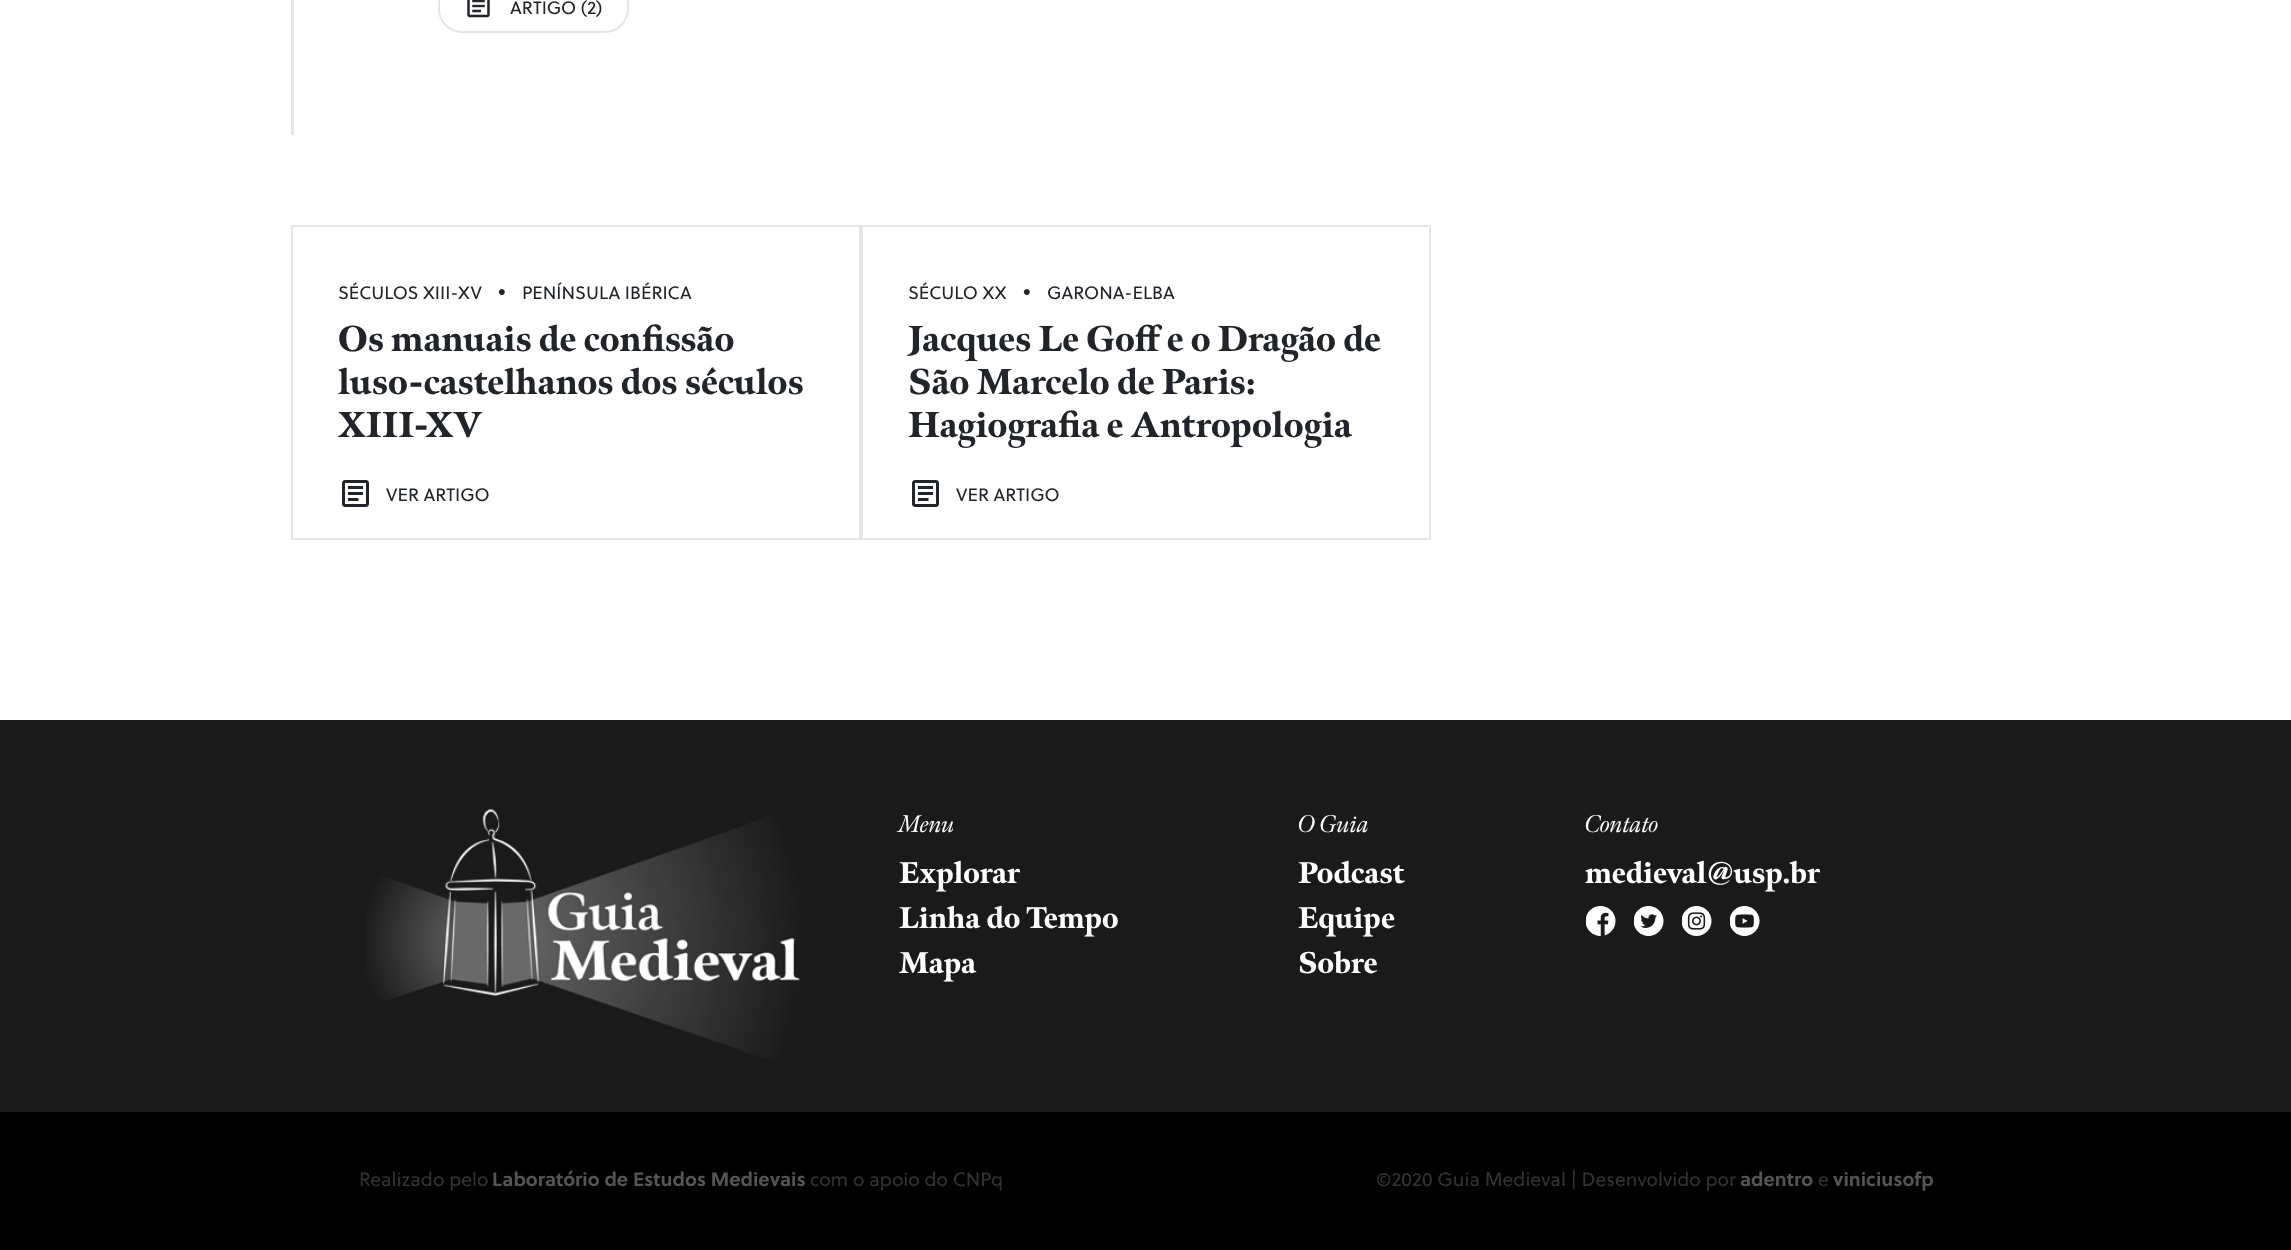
async function draw(canvas) {
	canvas.width = 2291;
	canvas.height = 1250;
	const c = canvas.getContext('2d');
	c.miterLimit = 4;
	c.fontKerning = 'normal';
	async function loadImage(src) {
		const img = new Image();
		img.src = src;
		await img.decode();
		return img;
	}

	c.fillStyle = '#fff';
	c.fillRect(0, 0, 2291, 1250);
	c.fillStyle = '#e6e6e6';
	c.fillRect(291, 0, 3, 135);
	c.beginPath();
	c.roundRect(439, -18, 189, 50, 23);
	c.strokeStyle = '#e6e6e6';
	c.lineWidth = 2;
	c.stroke();
	c.drawImage(await loadImage('img1.png'), 467, 0, 23, 18);
	c.font = '18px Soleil';
	c.fillStyle = '#212529';
	c.fillText('ARTIGO (2)', 510, 14);
	c.strokeRect(292, 226, 568, 313);
	c.fillText('SÉCULOS XIII-XV', 338, 299);
	c.font = '24px Soleil';
	c.fillText('•', 498, 299);
	c.font = '18px Soleil';
	c.fillText('PENÍNSULA IBÉRICA', 522, 299);
	c.font = '900 36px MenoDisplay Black';
	for (const [text, x, y] of [
		['Os manuais de confissão', 338, 351],
		['luso-castelhanos dos séculos', 338, 394],
		['XIII-XV', 338, 437],
	]) {
		c.fillText(text, x, y);
	}
	c.drawImage(await loadImage('img2.png'), 342, 480, 27, 27);
	c.font = '18px Soleil';
	c.fillText('VER ARTIGO', 386, 501);
	c.strokeRect(862, 226, 568, 313);
	c.fillText('SÉCULO XX', 908, 299);
	c.font = '24px Soleil';
	c.fillText('•', 1023, 299);
	c.font = '18px Soleil';
	c.fillText('GARONA-ELBA', 1047, 299);
	c.font = '900 36px MenoDisplay Black';
	for (const [text, x, y] of [
		['Jacques Le Goff e o Dragão de', 908, 351],
		['São Marcelo de Paris:', 908, 394],
		['Hagiografia e Antropologia', 908, 437],
	]) {
		c.fillText(text, x, y);
	}
	c.drawImage(await loadImage('img2.png'), 912, 480, 27, 27);
	c.font = '18px Soleil';
	c.fillText('VER ARTIGO', 956, 501);
	c.fillStyle = '#1a1a1a';
	c.fillRect(0, 720, 2291, 392);
	c.drawImage(await loadImage('img3.png'), 366, 809, 434, 250);
	c.font = 'italic 24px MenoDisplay';
	c.fillStyle = '#fff';
	c.fillText('Menu', 899, 832);
	c.font = '900 30px MenoDisplay Black';
	for (const [text, x, y] of [
		['Explorar', 899, 883],
		['Linha do Tempo', 899, 928],
		['Mapa', 899, 973],
	]) {
		c.fillText(text, x, y);
	}
	c.font = 'italic 24px MenoDisplay';
	c.fillText('O Guia', 1298, 832);
	c.font = '900 30px MenoDisplay Black';
	for (const [text, x, y] of [
		['Podcast', 1298, 883],
		['Equipe', 1298, 928],
		['Sobre', 1298, 973],
	]) {
		c.fillText(text, x, y);
	}
	c.font = 'italic 24px MenoDisplay';
	c.fillText('Contato', 1585, 832);
	c.font = '900 30px MenoDisplay Black';
	c.fillText('medieval@usp.br', 1585, 883);
	c.drawImage(await loadImage('img4.png'), 1586, 906, 30, 30);
	c.drawImage(await loadImage('img5.png'), 1634, 906, 30, 30);
	c.drawImage(await loadImage('img6.png'), 1682, 906, 30, 30);
	c.drawImage(await loadImage('img7.png'), 1730, 906, 30, 30);
	c.fillStyle = '#000';
	c.fillRect(0, 1112, 2291, 138);
	c.font = '19.25px Soleil';
	c.fillStyle = '#333';
	c.fillText('Realizado pelo', 359, 1186);
	c.font = 'bold 19.25px Soleil';
	c.fillStyle = '#555';
	c.fillText('Laboratório de Estudos Medievais', 492, 1186);
	c.font = '19.25px Soleil';
	c.fillStyle = '#333';
	c.fillText('com o apoio do CNPq', 810, 1186);
	c.fillText('©2020 Guia Medieval | Desenvolvido por', 1376, 1186);
	c.font = 'bold 19.25px Soleil';
	c.fillStyle = '#555';
	c.fillText('adentro', 1740, 1186);
	c.font = '19.25px Soleil';
	c.fillStyle = '#333';
	c.fillText('e', 1818, 1186);
	c.font = 'bold 19.25px Soleil';
	c.fillStyle = '#555';
	c.fillText('viniciusofp', 1833, 1186);
}

draw(document.querySelector('canvas'));
